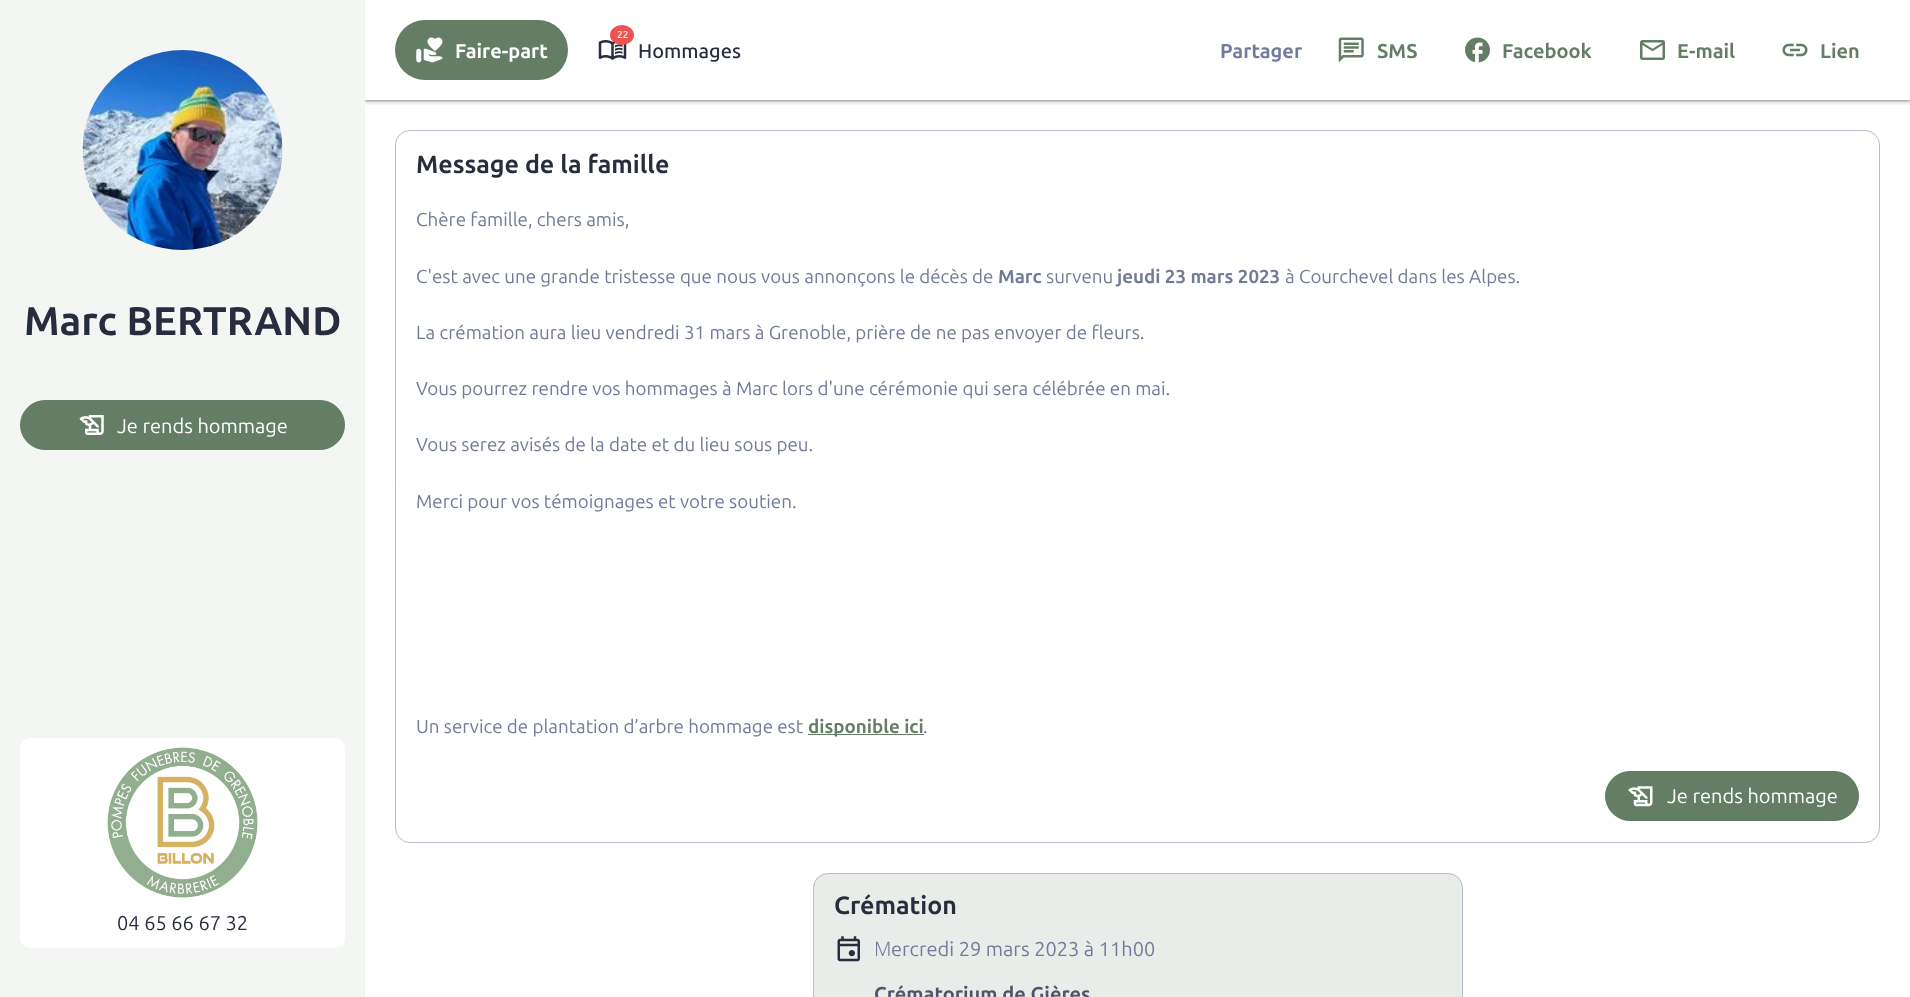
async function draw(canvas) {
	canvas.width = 1910;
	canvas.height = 997;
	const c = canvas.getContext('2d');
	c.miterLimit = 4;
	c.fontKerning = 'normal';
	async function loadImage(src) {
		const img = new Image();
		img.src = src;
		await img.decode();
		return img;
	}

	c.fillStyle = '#fff';
	c.fillRect(0, 0, 1910, 997);
	c.save();
	c.beginPath();
	c.rect(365, 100, 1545, 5);
	c.clip();
	c.fillStyle = '#00000026';
	c.filter = 'blur(2px)';
	c.beginPath();
	c.rect(364, 0, 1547, 103);
	c.fill();
	c.filter = 'none';
	c.restore();
	c.save();
	c.beginPath();
	c.rect(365, 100, 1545, 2);
	c.clip();
	c.fillStyle = '#0000004d';
	c.filter = 'blur(1px)';
	c.beginPath();
	c.rect(365, 1, 1545, 100);
	c.fill();
	c.filter = 'none';
	c.restore();
	c.fillStyle = '#f4f6f4';
	c.fillRect(0, 0, 365, 997);
	c.drawImage(await loadImage('img1.png'), 82, 50, 201, 200);
	c.font = 'bold 40px Ubuntu';
	c.fillStyle = '#282d3e';
	c.fillText('Marc BERTRAND', 24, 335);
	c.fillStyle = '#647d65';
	c.beginPath();
	c.roundRect(20.5, 400.5, 324, 49, 24.5);
	c.fill();
	c.strokeStyle = '#647d65';
	c.stroke();
	c.drawImage(await loadImage('img2.png'), 79, 415, 25, 20);
	c.font = '20px Ubuntu';
	c.fillStyle = '#fff';
	c.fillText('Je rends hommage', 117, 433);
	c.beginPath();
	c.roundRect(20, 738, 325, 210, 10);
	c.fill();
	c.drawImage(await loadImage('img3.png'), 107, 747, 151, 151);
	c.fillStyle = '#282d3e';
	c.fillText('04 65 66 67 32', 117, 930);
	c.fillStyle = '#647d65';
	c.beginPath();
	c.roundRect(395, 20, 173, 60, 30);
	c.fill();
	c.drawImage(await loadImage('img4.png'), 416, 37, 27, 26);
	c.font = 'bold 20px Ubuntu';
	c.fillStyle = '#fff';
	c.fillText('Faire-part', 455, 58);
	c.drawImage(await loadImage('img5.png'), 598, 40, 29, 20);
	c.fillStyle = '#ef5350';
	c.beginPath();
	c.ellipse(622, 35, 12, 10, 0, 0, 2 * Math.PI);
	c.fill();
	c.font = '500 10px Ubuntu';
	c.fillStyle = '#fff';
	c.fillText('22', 617, 38);
	c.font = '500 20px Ubuntu';
	c.fillStyle = '#282d3e';
	c.fillText('Hommages', 638, 58);
	c.font = 'bold 20px Ubuntu';
	c.fillStyle = '#717b98';
	c.fillText('Partager', 1220, 58);
	c.drawImage(await loadImage('img6.png'), 1338, 37, 26, 26);
	c.fillStyle = '#647d65';
	c.fillText('SMS', 1377, 58);
	c.drawImage(await loadImage('img7.png'), 1465, 37, 25, 26);
	c.fillText('Facebook', 1502, 58);
	c.drawImage(await loadImage('img8.png'), 1640, 40, 25, 20);
	c.fillText('E-mail', 1677, 58);
	c.drawImage(await loadImage('img9.png'), 1782, 43, 26, 14);
	c.fillText('Lien', 1820, 58);
	c.beginPath();
	c.roundRect(395.5, 130.5, 1484, 712, 14.5);
	c.strokeStyle = '#b9bdcb';
	c.stroke();
	c.font = 'bold 25px Ubuntu';
	c.fillStyle = '#282d3e';
	c.fillText('Message de la famille', 416, 173);
	c.font = '18.75px Ubuntu';
	c.fillStyle = '#717b98';
	c.fillText('Chère famille, chers amis,', 416, 226);
	c.fillText('C\'est avec une grande tristesse que nous vous annonçons le décès de', 416, 283);
	c.font = 'bold 18.75px Ubuntu';
	c.fillText('Marc', 998, 283);
	c.font = '18.75px Ubuntu';
	c.fillText('survenu', 1046, 283);
	c.font = 'bold 18.75px Ubuntu';
	c.fillText('jeudi 23 mars 2023', 1117, 283);
	c.font = '18.75px Ubuntu';
	for (const [text, x, y] of [
		['à Courchevel dans les Alpes.', 1285, 283],
		['La crémation aura lieu vendredi 31 mars à Grenoble, prière de ne pas envoyer de fleurs.', 416, 339],
		['Vous pourrez rendre vos hommages à Marc lors d\'une cérémonie qui sera célébrée en mai.', 416, 395],
		['Vous serez avisés de la date et du lieu sous peu.', 416, 451],
		['Merci pour vos témoignages et votre soutien.', 416, 508],
		['Un service de plantation d’arbre hommage est', 416, 733],
	]) {
		c.fillText(text, x, y);
	}
	c.fillStyle = '#647d65';
	c.fillRect(808, 734, 116, 1);
	c.font = 'bold 18.75px Ubuntu';
	c.fillText('disponible ici', 808, 733);
	c.font = '18.75px Ubuntu';
	c.fillStyle = '#717b98';
	c.fillText('.', 923, 733);
	c.fillStyle = '#647d65';
	c.beginPath();
	c.roundRect(1605.5, 771.5, 253, 49, 24.5);
	c.fill();
	c.strokeStyle = '#647d65';
	c.stroke();
	c.drawImage(await loadImage('img10.png'), 1628, 786, 25, 21);
	c.font = '20px Ubuntu';
	c.fillStyle = '#fff';
	c.fillText('Je rends hommage', 1667, 803);
	c.fillStyle = '#e8ede9';
	c.beginPath();
	c.moveTo(828, 873);
	c.lineTo(1448, 873);
	c.bezierCurveTo(1456.5, 873, 1463, 879.5, 1463, 888);
	c.lineTo(1463, 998);
	c.lineTo(813, 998);
	c.lineTo(813, 888);
	c.bezierCurveTo(813, 879.5, 819.5, 873, 828, 873);
	c.closePath();
	c.fill();
	c.beginPath();
	c.roundRect(813.5, 873.5, 649, 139, 14.5);
	c.strokeStyle = '#b9bdcb';
	c.stroke();
	c.font = 'bold 25px Ubuntu';
	c.fillStyle = '#282d3e';
	c.fillText('Crémation', 834, 914);
	c.drawImage(await loadImage('img11.png'), 837, 936, 23, 26);
	c.font = '300 20px Noto Sans';
	c.fillStyle = '#717b98';
	c.fillText('M', 874, 956);
	c.font = '20px Ubuntu';
	c.fillText('ercredi 29 mars 2023 à 11h00', 891, 956);
	c.font = 'bold 20px Ubuntu';
	c.fillStyle = '#4e5568';
	c.fillText('Crématorium de Gières', 874, 1001);
}

draw(document.querySelector('canvas'));
